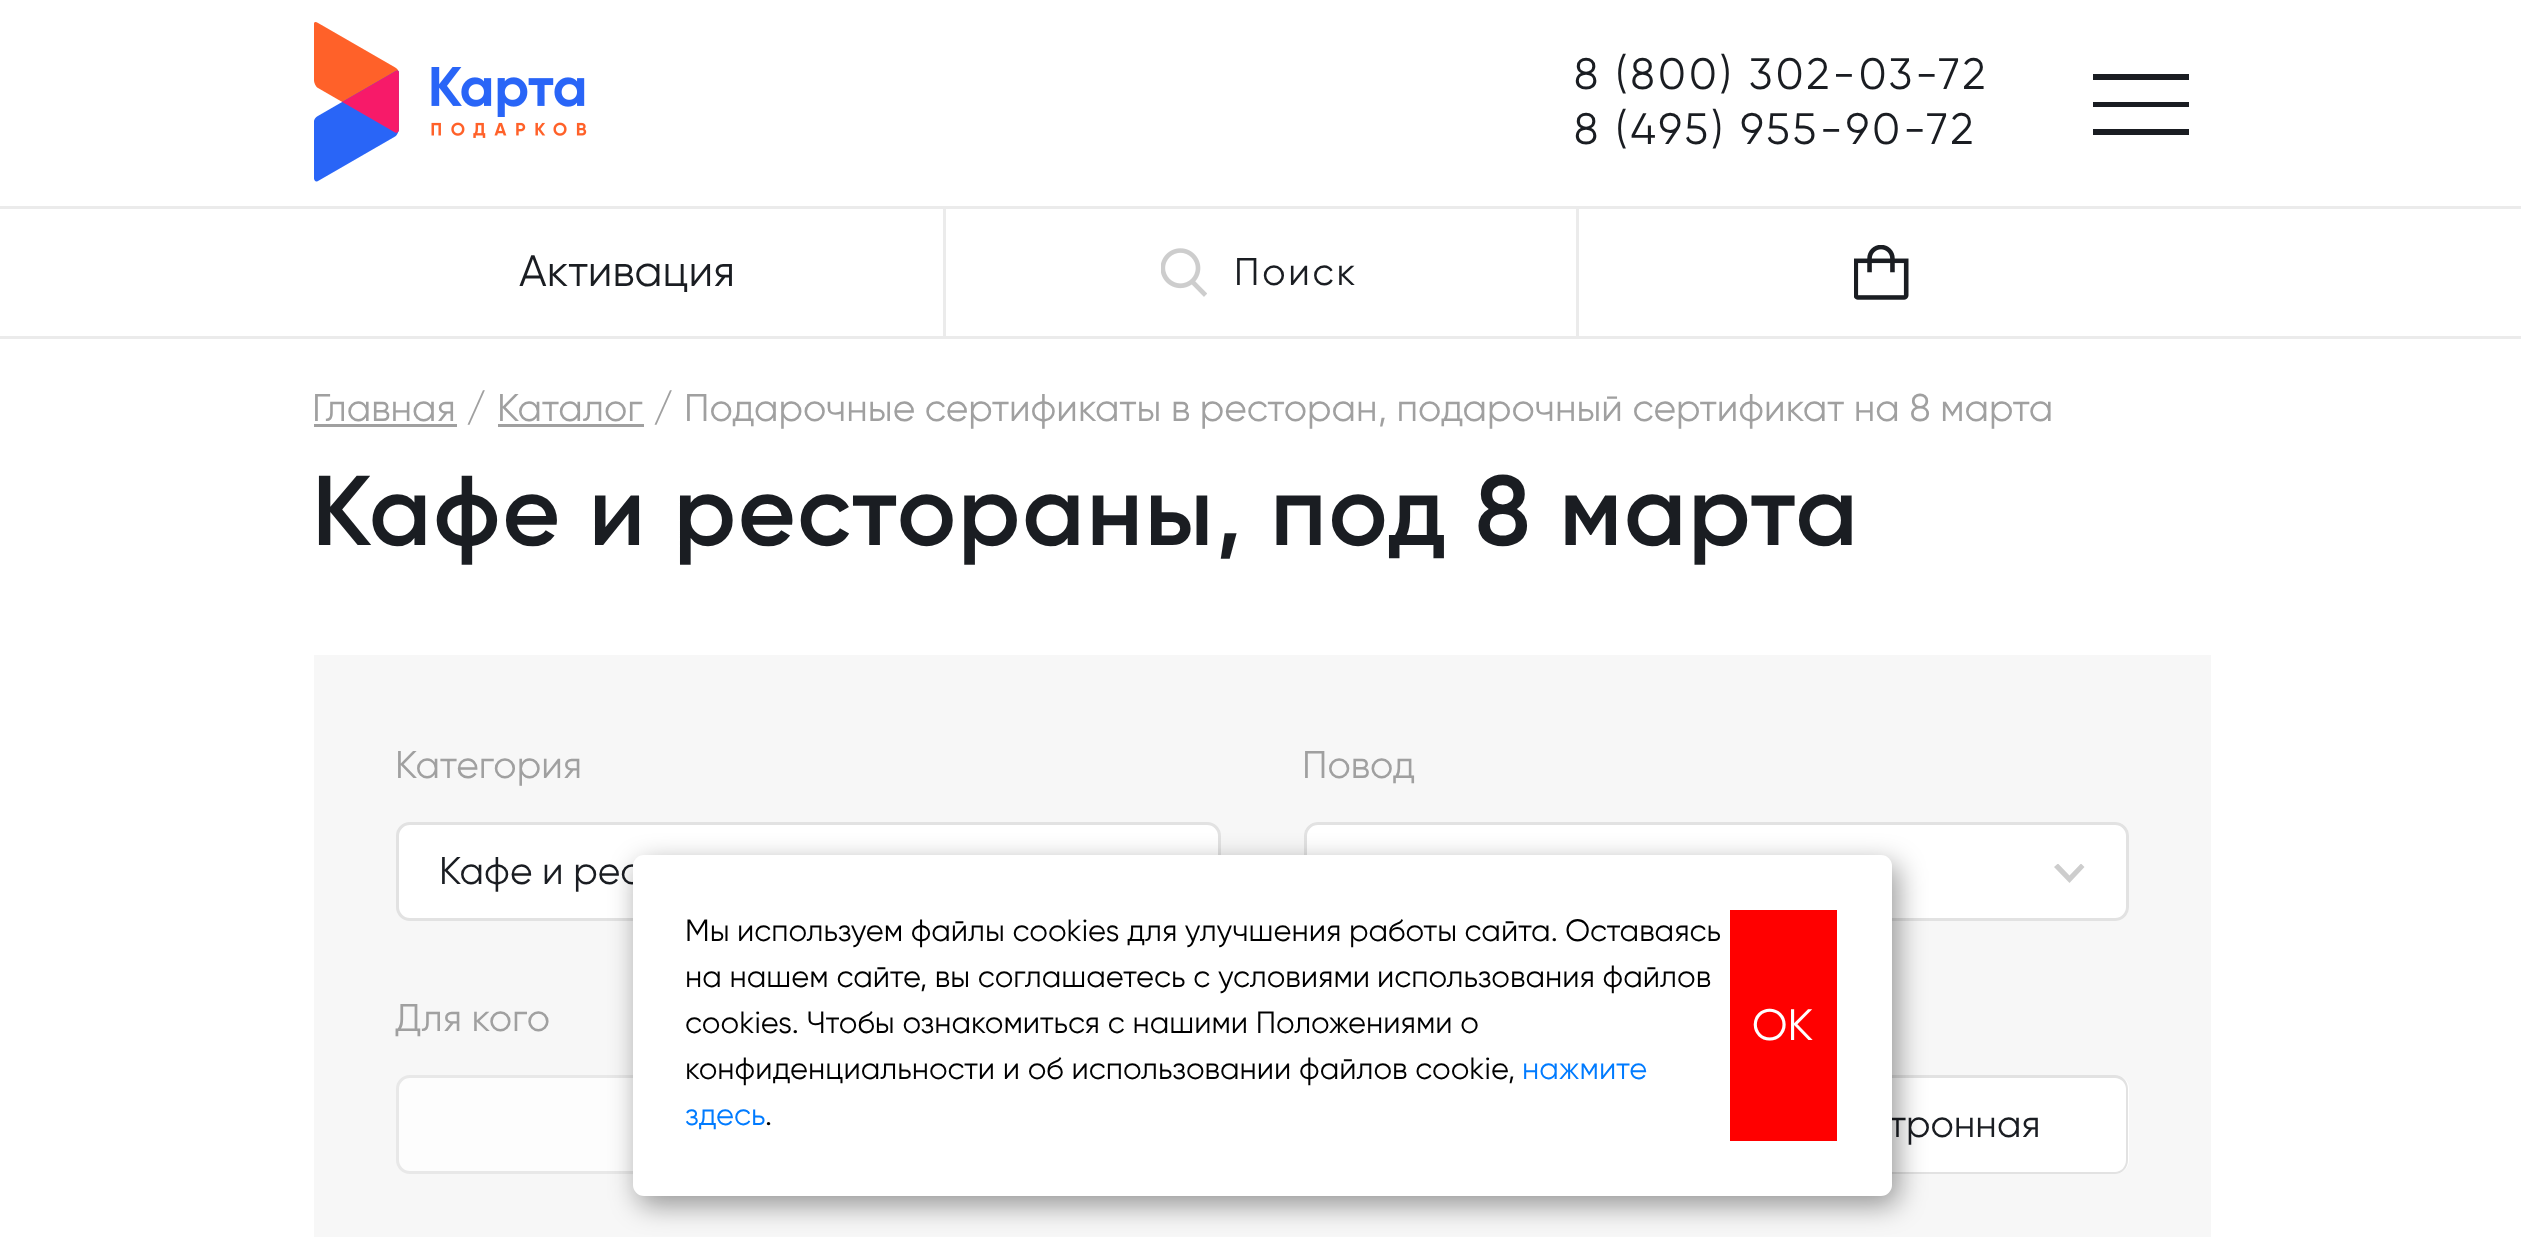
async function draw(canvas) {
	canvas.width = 2521;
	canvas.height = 1237;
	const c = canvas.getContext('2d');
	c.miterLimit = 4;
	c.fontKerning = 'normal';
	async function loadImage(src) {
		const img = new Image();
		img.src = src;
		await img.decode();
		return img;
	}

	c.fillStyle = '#fff';
	c.fillRect(0, 0, 2521, 1237);
	c.drawImage(await loadImage('img1.png'), 314, 22, 273, 160);
	c.letterSpacing = '3.25px';
	c.font = '44px Gilroy';
	c.fillStyle = '#1a1d22';
	c.fillText('8 (800) 302-03-72', 1574, 89);
	c.fillText('8 (495) 955-90-72', 1574, 144);
	c.beginPath();
	c.moveTo(2189, 129);
	c.lineTo(2189, 135);
	c.lineTo(2093, 135);
	c.lineTo(2093, 129);
	c.closePath();
	c.moveTo(2189, 102);
	c.lineTo(2189, 107);
	c.lineTo(2093, 107);
	c.lineTo(2093, 102);
	c.closePath();
	c.moveTo(2189, 74);
	c.lineTo(2189, 80);
	c.lineTo(2093, 80);
	c.lineTo(2093, 74);
	c.closePath();
	c.fill('evenodd');
	c.fillStyle = '#ebebeb';
	c.fillRect(0, 206, 2521, 3);
	c.fillRect(943, 209, 3, 127);
	c.letterSpacing = '0px';
	c.fillStyle = '#1a1d22';
	c.fillText('Активация', 519, 286);
	c.fillStyle = '#ebebeb';
	c.fillRect(1576, 209, 3, 127);
	c.drawImage(await loadImage('img2.png'), 1161, 248, 46, 49);
	c.letterSpacing = '2.75px';
	c.font = '38.5px Gilroy';
	c.fillStyle = '#1a1d22';
	c.fillText('Поиск', 1234, 285);
	c.drawImage(await loadImage('img3.png'), 1854, 245, 55, 55);
	c.fillStyle = '#ebebeb';
	c.fillRect(0, 336, 2521, 3);
	c.letterSpacing = '0px';
	c.fillStyle = '#a0a0a0';
	c.fillText('Главная', 312, 421);
	c.fillRect(314, 424, 143, 3);
	c.fillText('/', 466, 421);
	c.fillText('Каталог', 497, 421);
	c.fillRect(498, 424, 146, 3);
	c.fillText('/', 653, 421);
	c.fillText('Подарочные сертификаты в ресторан, подарочный сертификат на 8 марта', 684, 421);
	c.letterSpacing = '1.9px';
	c.font = '600 99px Gilroy';
	c.fillStyle = '#1a1d22';
	c.fillText('Кафе и рестораны, под 8 марта', 312, 545);
	c.fillStyle = '#f7f7f7';
	c.fillRect(314, 655, 1897, 582);
	c.letterSpacing = '0px';
	c.font = '38.5px Gilroy';
	c.fillStyle = '#a0a0a0';
	c.fillText('Категория', 395, 778);
	c.fillStyle = '#fff';
	c.beginPath();
	c.roundRect(397.5, 823.5, 822, 96, 12.5);
	c.fill();
	c.strokeStyle = '#e2e2e2';
	c.lineWidth = 3;
	c.stroke();
	c.fillStyle = '#1a1d22';
	c.fillText('Кафе и рес', 439, 884);
	c.fillStyle = '#a0a0a0';
	c.fillText('Повод', 1302, 778);
	c.fillStyle = '#fff';
	c.beginPath();
	c.roundRect(1304, 822, 825, 99, 14);
	c.fill();
	c.save();
	c.beginPath();
	c.rect(2054, 864, 31, 19);
	c.clip();
	c.fillStyle = '#cdcdcd';
	c.beginPath();
	c.moveTo(2054, 867);
	c.lineTo(2058, 863.5);
	c.lineTo(2069.5, 875.5);
	c.lineTo(2081, 863.5);
	c.lineTo(2084.5, 867);
	c.lineTo(2069.5, 883);
	c.closePath();
	c.fill('evenodd');
	c.restore();
	c.beginPath();
	c.roundRect(1305.5, 823.5, 822, 96, 12.5);
	c.stroke();
	c.fillStyle = '#a0a0a0';
	c.fillText('Для кого', 395, 1031);
	c.fillStyle = '#fdfdfd';
	c.beginPath();
	c.roundRect(397.5, 1076.5, 822, 96, 12.5);
	c.fill();
	c.strokeStyle = '#e8e8e8';
	c.stroke();
	c.fillStyle = '#fff';
	c.beginPath();
	c.roundRect(1716, 1075, 413, 99, [0, 14, 14, 0]);
	c.fill();
	c.fillStyle = '#e2e2e2';
	c.beginPath();
	c.moveTo(1716, 1075);
	c.lineTo(2115, 1075);
	c.bezierCurveTo(2122, 1075, 2128, 1081, 2128, 1089);
	c.lineTo(2128, 1160);
	c.bezierCurveTo(2128, 1168, 2122, 1174, 2115, 1174);
	c.lineTo(1716, 1174);
	c.closePath();
	c.moveTo(1716, 1078);
	c.lineTo(2115, 1078);
	c.bezierCurveTo(2121, 1078, 2126, 1083, 2126, 1089);
	c.lineTo(2126, 1160);
	c.bezierCurveTo(2126, 1167, 2121, 1172, 2115, 1172);
	c.lineTo(1716, 1172);
	c.closePath();
	c.fill('evenodd');
	c.fillStyle = '#1a1d22';
	c.fillText('тронная', 1889, 1137);
	c.fillStyle = '#00000066';
	c.filter = 'blur(14px)';
	c.beginPath();
	c.roundRect(638, 864, 1260, 341, 11);
	c.fill();
	c.filter = 'none';
	c.fillStyle = '#fff';
	c.beginPath();
	c.roundRect(633, 855, 1259, 341, 11);
	c.fill();
	c.wordSpacing = '-0.25px';
	c.font = '30.8px Gilroy';
	c.fillStyle = '#000';
	c.fillText('Мы используем файлы cookies для улучшения работы сайта. Оставаясь', 685, 941);
	c.wordSpacing = '0px';
	for (const [text, x, y] of [
		['на нашем сайте, вы соглашаетесь с условиями', 685, 987],
		['использования файлов', 1377, 987],
		['cookies. Чтобы ознакомиться с нашими Положениями о', 685, 1033],
		['конфиденциальности и об использовании', 685, 1079],
		['файлов cookie,', 1299, 1079],
	]) {
		c.fillText(text, x, y);
	}
	c.fillStyle = '#007bff';
	c.fillText('нажмите', 1522, 1079);
	c.fillText('здесь', 685, 1125);
	c.fillStyle = '#000';
	c.fillText('.', 765, 1125);
	c.fillStyle = '#f00';
	c.fillRect(1730, 910, 107, 231);
	c.font = '44px Gilroy';
	c.fillStyle = '#fff';
	c.fillText('ОК', 1752, 1040);
}

draw(document.querySelector('canvas'));
